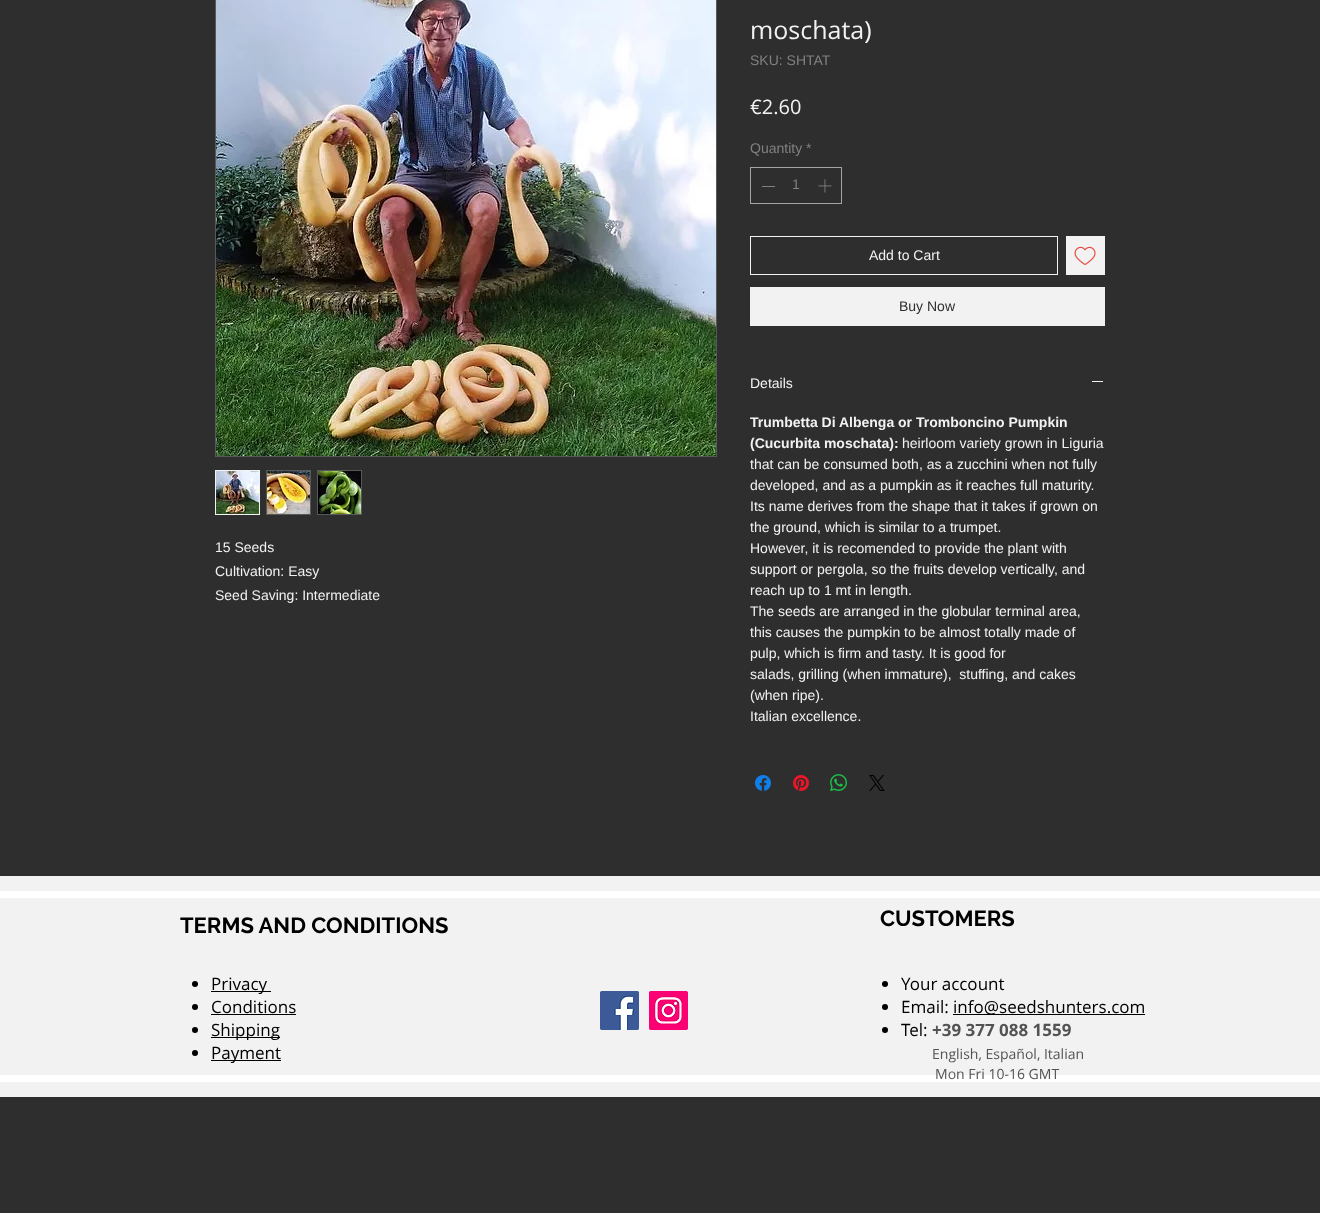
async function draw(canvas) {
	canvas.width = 1320;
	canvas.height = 1213;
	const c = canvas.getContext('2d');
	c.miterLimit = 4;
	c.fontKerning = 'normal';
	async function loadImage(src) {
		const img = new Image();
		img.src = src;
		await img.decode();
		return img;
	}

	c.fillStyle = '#2f2e2e';
	c.fillRect(0, 0, 1320, 1213);
	c.strokeStyle = '#595858';
	c.strokeRect(215.5, -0.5, 501, 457);
	c.drawImage(await loadImage('img1.png'), 216, 0, 500, 456);
	c.strokeStyle = '#f2f2f2';
	c.strokeRect(215.5, 470.5, 44, 44);
	c.drawImage(await loadImage('img2.png'), 216, 471, 43, 43);
	c.strokeStyle = '#595858';
	c.strokeRect(266.5, 470.5, 44, 44);
	c.drawImage(await loadImage('img3.png'), 267, 471, 43, 43);
	c.strokeRect(317.5, 470.5, 44, 44);
	c.drawImage(await loadImage('img4.png'), 318, 471, 43, 43);
	c.font = '14px Liberation Sans';
	c.fillStyle = '#f2f2f2';
	for (const [text, x, y] of [
		['15 Seeds', 215, 552],
		['Cultivation: Easy', 215, 576],
		['Seed Saving: Intermediate', 215, 600],
	]) {
		c.fillText(text, x, y);
	}
	c.font = '25px Open Sans';
	c.fillText('moschata)', 750, 39);
	c.font = '14px Liberation Sans';
	c.fillStyle = '#828181';
	c.fillText('SKU: SHTAT', 750, 65);
	c.font = '20px Open Sans';
	c.fillStyle = '#f2f2f2';
	c.fillText('€2.60', 750, 114);
	c.font = '14px Liberation Sans';
	c.fillStyle = '#828181';
	c.fillText('Quantity *', 750, 153);
	c.strokeStyle = '#a4a4a4';
	c.strokeRect(750.5, 167.5, 91, 36);
	c.fillRect(762, 186, 13, 1);
	c.fillText('1', 792, 189);
	c.drawImage(await loadImage('img5.png'), 818, 179, 14, 14);
	c.strokeStyle = '#f2f2f2';
	c.strokeRect(750.5, 236.5, 307, 38);
	c.fillStyle = '#f2f2f2';
	c.fillText('Add to Cart', 869, 260);
	c.fillRect(1066, 236, 39, 39);
	c.drawImage(await loadImage('img6.png'), 1074, 246, 22, 19);
	c.fillRect(750, 287, 355, 39);
	c.fillStyle = '#2f2e2e';
	c.fillText('Buy Now', 899, 311);
	c.fillStyle = '#f2f2f2';
	c.fillText('Details', 750, 388);
	c.fillRect(1092, 381, 11, 1);
	c.font = 'bold 14px Liberation Sans';
	c.fillText('Trumbetta Di Albenga or Tromboncino Pumpkin', 750, 427);
	c.fillText('(Cucurbita moschata):', 750, 448);
	c.font = '14px Liberation Sans';
	for (const [text, x, y] of [
		['heirloom variety grown in Liguria', 902, 448],
		['that can be consumed both, as a zucchini when not fully', 750, 469],
		['developed, and as a pumpkin as it reaches full maturity.', 750, 490],
		['Its name derives from the shape that it takes if grown on', 750, 511],
		['the ground, which is similar to a trumpet.', 750, 532],
		['However, it is recomended to provide the plant with', 750, 553],
		['support or pergola, so the fruits develop vertically, and', 750, 574],
		['reach up to 1 mt in length.', 750, 595],
		['The seeds are arranged in the globular terminal area,', 750, 616],
		['this causes the pumpkin to be almost totally made of', 750, 637],
		['pulp, which is firm and tasty. It is good for', 750, 658],
		['salads, grilling (when immature),  stuffing, and cakes', 750, 679],
		['(when ripe).', 750, 700],
		['Italian excellence.', 750, 721],
	]) {
		c.fillText(text, x, y);
	}
	c.drawImage(await loadImage('img7.png'), 755, 775, 16, 16);
	c.drawImage(await loadImage('img8.png'), 793, 775, 16, 16);
	c.drawImage(await loadImage('img9.png'), 830, 774, 17, 17);
	c.drawImage(await loadImage('img10.png'), 869, 775, 16, 16);
	for (const [x, y, w, h, color] of [
		[0, 876, 1320, 221, '#f2f2f2'],
		[0, 891, 1320, 7, '#fff'],
		[0, 1075, 1320, 7, '#fff'],
	]) {
		c.fillStyle = color;
		c.fillRect(x, y, w, h);
	}
	c.font = 'bold 22px Raleway';
	c.fillStyle = '#000';
	c.fillText('TERMS AND CONDITIONS', 180, 933);
	c.fillText('CUSTOMERS', 880, 926);
	c.beginPath();
	c.arc(195, 984, 3, 0, 2 * Math.PI);
	c.fill();
	c.fillRect(211, 991, 60, 1);
	c.font = '17px Open Sans';
	c.fillText('Privacy', 211, 990);
	c.beginPath();
	c.arc(195, 1007, 3, 0, 2 * Math.PI);
	c.fill();
	c.fillText('Conditions', 211, 1013);
	c.fillRect(211, 1014, 85, 1);
	c.beginPath();
	c.arc(195, 1030, 3, 0, 2 * Math.PI);
	c.fill();
	c.fillRect(211, 1037, 69, 1);
	c.fillText('Shipping', 211, 1036);
	c.beginPath();
	c.arc(195, 1053, 3, 0, 2 * Math.PI);
	c.fill();
	c.fillRect(211, 1060, 70, 1);
	c.fillText('Payment', 211, 1059);
	c.drawImage(await loadImage('img11.png'), 600, 991, 39, 39);
	c.drawImage(await loadImage('img12.png'), 649, 991, 39, 39);
	c.beginPath();
	c.arc(885, 984, 3, 0, 2 * Math.PI);
	c.fill();
	c.fillText('Your account', 901, 990);
	c.beginPath();
	c.arc(885, 1007, 3, 0, 2 * Math.PI);
	c.fill();
	c.fillText('Email:', 901, 1013);
	c.fillRect(953, 1014, 192, 1);
	c.fillText('info@seedshunters.com', 953, 1013);
	c.beginPath();
	c.arc(885, 1030, 3, 0, 2 * Math.PI);
	c.fill();
	c.fillText('Tel:', 901, 1036);
	c.font = 'bold 17px Open Sans';
	c.fillStyle = '#535353';
	c.fillText('+39 377 088 1559', 932, 1036);
	c.font = '14px Open Sans';
	c.fillText('English, Español, Italian', 932, 1059);
	c.fillText('Mon Fri 10-16 GMT', 935, 1079);
}

draw(document.querySelector('canvas'));
